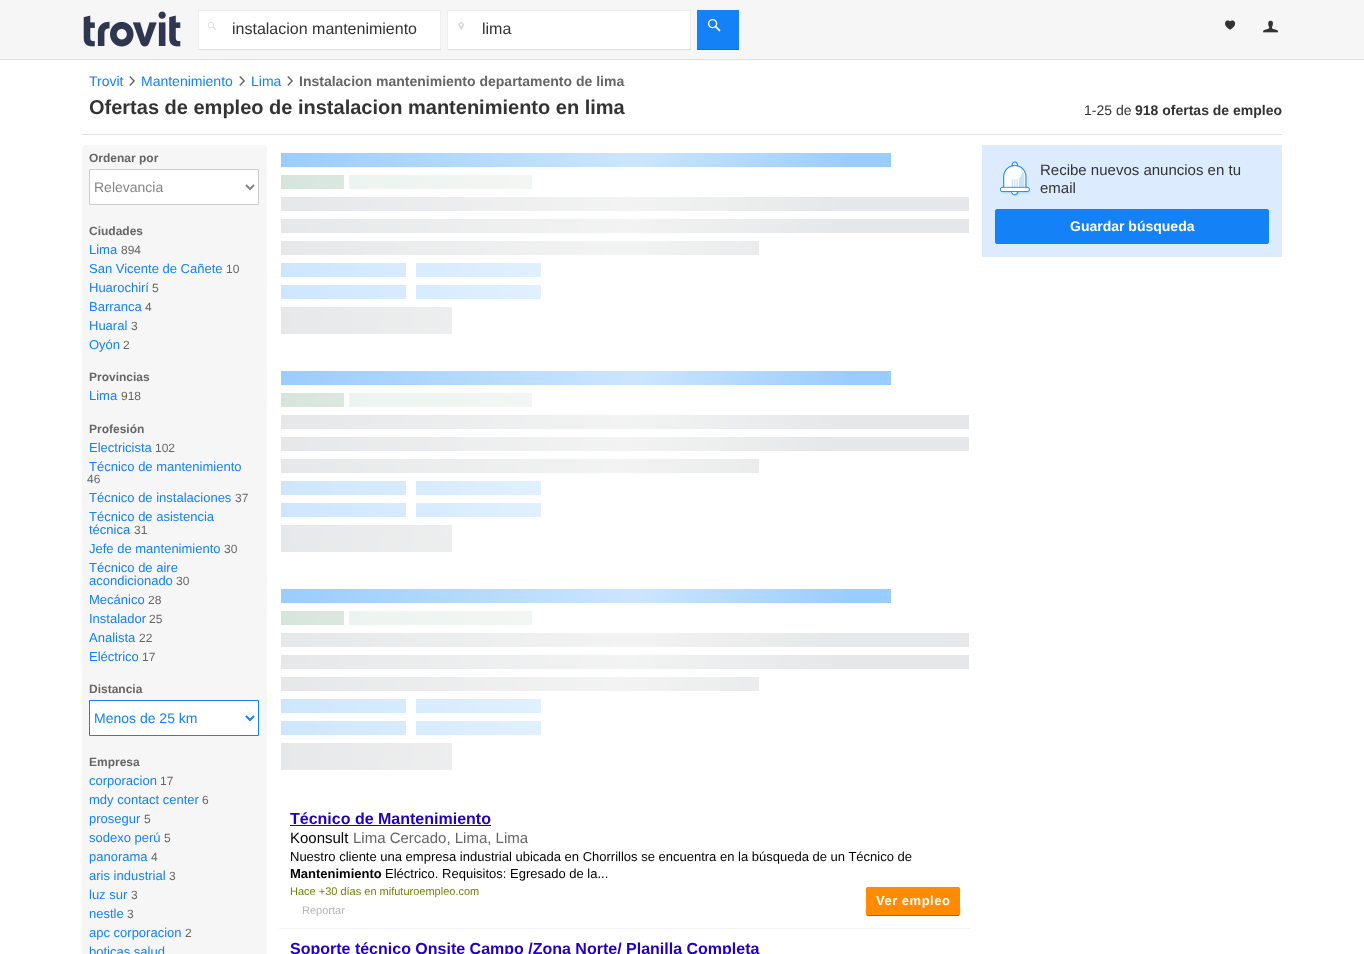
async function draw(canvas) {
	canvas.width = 1364;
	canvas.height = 954;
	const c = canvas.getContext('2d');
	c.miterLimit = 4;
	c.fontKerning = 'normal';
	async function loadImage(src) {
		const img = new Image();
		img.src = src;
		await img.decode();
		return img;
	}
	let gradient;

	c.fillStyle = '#fff';
	c.fillRect(0, 0, 1364, 954);
	c.fillStyle = '#f6f6f7';
	c.fillRect(0, 0, 1364, 59);
	c.fillStyle = '#e1e0e0';
	c.fillRect(0, 59, 1364, 1);
	c.drawImage(await loadImage('img1.png'), 83, 11, 98, 36);
	c.fillStyle = '#fff';
	c.fillRect(199, 11, 241, 38);
	c.drawImage(await loadImage('img2.png'), 208, 22, 8, 8);
	for (const [x, y, w, h, color] of [
		[198, 10, 243, 1, '#eee'],
		[440, 10, 1, 40, '#eee'],
		[198, 49, 243, 1, '#ddd'],
		[198, 10, 1, 40, '#eee'],
	]) {
		c.fillStyle = color;
		c.fillRect(x, y, w, h);
	}
	c.font = '16px Liberation Sans';
	c.fillStyle = '#333';
	c.fillText('instalacion mantenimiento', 232, 34);
	c.fillStyle = '#fff';
	c.fillRect(448, 11, 242, 38);
	c.drawImage(await loadImage('img3.png'), 458, 22, 6, 8);
	for (const [x, y, w, h, color] of [
		[447, 10, 244, 1, '#eee'],
		[690, 10, 1, 40, '#eee'],
		[447, 49, 244, 1, '#ddd'],
		[447, 10, 1, 40, '#eee'],
	]) {
		c.fillStyle = color;
		c.fillRect(x, y, w, h);
	}
	c.fillStyle = '#333';
	c.fillText('lima', 482, 34);
	c.fillStyle = '#1481f7';
	c.fillRect(697, 10, 42, 39);
	c.fillStyle = '#1271d8';
	c.fillRect(697, 49, 42, 1);
	c.drawImage(await loadImage('img4.png'), 708, 19, 13, 13);
	c.drawImage(await loadImage('img5.png'), 1225, 20, 11, 10);
	c.drawImage(await loadImage('img6.png'), 1263, 20, 16, 13);
	c.fillStyle = '#e2e2e2';
	c.fillRect(82, 134, 1200, 1);
	c.font = '14px Liberation Sans';
	c.fillStyle = '#1481f7';
	c.fillText('Trovit', 89, 86);
	c.drawImage(await loadImage('img7.png'), 129, 76, 6, 10);
	c.fillText('Mantenimiento', 141, 86);
	c.drawImage(await loadImage('img7.png'), 239, 76, 6, 10);
	c.fillText('Lima', 251, 86);
	c.drawImage(await loadImage('img7.png'), 287, 76, 6, 10);
	c.font = 'bold 14px Liberation Sans';
	c.fillStyle = '#666';
	c.fillText('Instalacion mantenimiento departamento de lima', 299, 86);
	c.font = 'bold 20px Liberation Sans';
	c.fillStyle = '#333';
	c.fillText('Ofertas de empleo de instalacion mantenimiento en lima', 89, 114);
	c.font = '14px Liberation Sans';
	c.fillText('1-25 de', 1084, 115);
	c.font = 'bold 14px Liberation Sans';
	c.fillText('918 ofertas de empleo', 1135, 115);
	c.fillStyle = '#f6f6f7';
	c.beginPath();
	c.roundRect(82, 145, 185, 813, 4);
	c.fill();
	c.font = 'bold 12px Liberation Sans';
	c.fillStyle = '#666';
	c.fillText('Ordenar por', 89, 162);
	c.fillStyle = '#fff';
	c.beginPath();
	c.rect(89.5, 169.5, 169, 35);
	c.fill();
	c.strokeStyle = '#ccc';
	c.stroke();
	c.beginPath();
	c.moveTo(246, 185);
	c.lineTo(250, 189);
	c.lineTo(254, 185);
	c.strokeStyle = '#858585';
	c.lineWidth = 2;
	c.stroke();
	c.font = '14px Liberation Sans';
	c.fillStyle = '#858585';
	c.fillText('Relevancia', 94, 192);
	c.font = 'bold 12px Liberation Sans';
	c.fillStyle = '#666';
	c.fillText('Ciudades', 89, 235);
	c.font = '13px Liberation Sans';
	c.fillStyle = '#1481f7';
	c.fillText('Lima', 89, 254);
	c.font = '12px Liberation Sans';
	c.fillStyle = '#666';
	c.fillText('894', 121, 254);
	c.font = '13px Liberation Sans';
	c.fillStyle = '#1481f7';
	c.fillText('San Vicente de Cañete', 89, 273);
	c.font = '12px Liberation Sans';
	c.fillStyle = '#666';
	c.fillText('10', 226, 273);
	c.font = '13px Liberation Sans';
	c.fillStyle = '#1481f7';
	c.fillText('Huarochirí', 89, 292);
	c.font = '12px Liberation Sans';
	c.fillStyle = '#666';
	c.fillText('5', 152, 292);
	c.font = '13px Liberation Sans';
	c.fillStyle = '#1481f7';
	c.fillText('Barranca', 89, 311);
	c.font = '12px Liberation Sans';
	c.fillStyle = '#666';
	c.fillText('4', 145, 311);
	c.font = '13px Liberation Sans';
	c.fillStyle = '#1481f7';
	c.fillText('Huaral', 89, 330);
	c.font = '12px Liberation Sans';
	c.fillStyle = '#666';
	c.fillText('3', 131, 330);
	c.font = '13px Liberation Sans';
	c.fillStyle = '#1481f7';
	c.fillText('Oyón', 89, 349);
	c.font = '12px Liberation Sans';
	c.fillStyle = '#666';
	c.fillText('2', 123, 349);
	c.font = 'bold 12px Liberation Sans';
	c.fillText('Provincias', 89, 381);
	c.font = '13px Liberation Sans';
	c.fillStyle = '#1481f7';
	c.fillText('Lima', 89, 400);
	c.font = '12px Liberation Sans';
	c.fillStyle = '#666';
	c.fillText('918', 121, 400);
	c.font = 'bold 12px Liberation Sans';
	c.fillText('Profesión', 89, 433);
	c.font = '13px Liberation Sans';
	c.fillStyle = '#1481f7';
	c.fillText('Electricista', 89, 452);
	c.font = '12px Liberation Sans';
	c.fillStyle = '#666';
	c.fillText('102', 155, 452);
	c.font = '13px Liberation Sans';
	c.fillStyle = '#1481f7';
	c.fillText('Técnico de mantenimiento', 89, 471);
	c.font = '12px Liberation Sans';
	c.fillStyle = '#666';
	c.fillText('46', 87, 483);
	c.font = '13px Liberation Sans';
	c.fillStyle = '#1481f7';
	c.fillText('Técnico de instalaciones', 89, 502);
	c.font = '12px Liberation Sans';
	c.fillStyle = '#666';
	c.fillText('37', 235, 502);
	c.font = '13px Liberation Sans';
	c.fillStyle = '#1481f7';
	c.fillText('Técnico de asistencia', 89, 521);
	c.fillText('técnica', 89, 534);
	c.font = '12px Liberation Sans';
	c.fillStyle = '#666';
	c.fillText('31', 134, 534);
	c.font = '13px Liberation Sans';
	c.fillStyle = '#1481f7';
	c.fillText('Jefe de mantenimiento', 89, 553);
	c.font = '12px Liberation Sans';
	c.fillStyle = '#666';
	c.fillText('30', 224, 553);
	c.font = '13px Liberation Sans';
	c.fillStyle = '#1481f7';
	c.fillText('Técnico de aire', 89, 572);
	c.fillText('acondicionado', 89, 585);
	c.font = '12px Liberation Sans';
	c.fillStyle = '#666';
	c.fillText('30', 176, 585);
	c.font = '13px Liberation Sans';
	c.fillStyle = '#1481f7';
	c.fillText('Mecánico', 89, 604);
	c.font = '12px Liberation Sans';
	c.fillStyle = '#666';
	c.fillText('28', 148, 604);
	c.font = '13px Liberation Sans';
	c.fillStyle = '#1481f7';
	c.fillText('Instalador', 89, 623);
	c.font = '12px Liberation Sans';
	c.fillStyle = '#666';
	c.fillText('25', 149, 623);
	c.font = '13px Liberation Sans';
	c.fillStyle = '#1481f7';
	c.fillText('Analista', 89, 642);
	c.font = '12px Liberation Sans';
	c.fillStyle = '#666';
	c.fillText('22', 139, 642);
	c.font = '13px Liberation Sans';
	c.fillStyle = '#1481f7';
	c.fillText('Eléctrico', 89, 661);
	c.font = '12px Liberation Sans';
	c.fillStyle = '#666';
	c.fillText('17', 142, 661);
	c.font = 'bold 12px Liberation Sans';
	c.fillText('Distancia', 89, 693);
	c.fillStyle = '#fff';
	c.beginPath();
	c.rect(89.5, 700.5, 169, 35);
	c.fill();
	c.strokeStyle = '#1481f7';
	c.lineWidth = 1;
	c.stroke();
	c.beginPath();
	c.moveTo(246, 716);
	c.lineTo(250, 720);
	c.lineTo(254, 716);
	c.lineWidth = 2;
	c.stroke();
	c.font = '14px Liberation Sans';
	c.fillStyle = '#1481f7';
	c.fillText('Menos de 25 km', 94, 723);
	c.font = 'bold 12px Liberation Sans';
	c.fillStyle = '#666';
	c.fillText('Empresa', 89, 766);
	c.font = '13px Liberation Sans';
	c.fillStyle = '#1481f7';
	c.fillText('corporacion', 89, 785);
	c.font = '12px Liberation Sans';
	c.fillStyle = '#666';
	c.fillText('17', 160, 785);
	c.font = '13px Liberation Sans';
	c.fillStyle = '#1481f7';
	c.fillText('mdy contact center', 89, 804);
	c.font = '12px Liberation Sans';
	c.fillStyle = '#666';
	c.fillText('6', 202, 804);
	c.font = '13px Liberation Sans';
	c.fillStyle = '#1481f7';
	c.fillText('prosegur', 89, 823);
	c.font = '12px Liberation Sans';
	c.fillStyle = '#666';
	c.fillText('5', 144, 823);
	c.font = '13px Liberation Sans';
	c.fillStyle = '#1481f7';
	c.fillText('sodexo perú', 89, 842);
	c.font = '12px Liberation Sans';
	c.fillStyle = '#666';
	c.fillText('5', 164, 842);
	c.font = '13px Liberation Sans';
	c.fillStyle = '#1481f7';
	c.fillText('panorama', 89, 861);
	c.font = '12px Liberation Sans';
	c.fillStyle = '#666';
	c.fillText('4', 151, 861);
	c.font = '13px Liberation Sans';
	c.fillStyle = '#1481f7';
	c.fillText('aris industrial', 89, 880);
	c.font = '12px Liberation Sans';
	c.fillStyle = '#666';
	c.fillText('3', 169, 880);
	c.font = '13px Liberation Sans';
	c.fillStyle = '#1481f7';
	c.fillText('luz sur', 89, 899);
	c.font = '12px Liberation Sans';
	c.fillStyle = '#666';
	c.fillText('3', 131, 899);
	c.font = '13px Liberation Sans';
	c.fillStyle = '#1481f7';
	c.fillText('nestle', 89, 918);
	c.font = '12px Liberation Sans';
	c.fillStyle = '#666';
	c.fillText('3', 127, 918);
	c.font = '13px Liberation Sans';
	c.fillStyle = '#1481f7';
	c.fillText('apc corporacion', 89, 937);
	c.font = '12px Liberation Sans';
	c.fillStyle = '#666';
	c.fillText('2', 185, 937);
	c.font = '13px Liberation Sans';
	c.fillStyle = '#1481f7';
	c.fillText('boticas salud', 89, 956);
	c.fillStyle = '#dcebfe';
	c.fillRect(982, 145, 300, 112);
	c.drawImage(await loadImage('img8.png'), 1000, 161, 31, 35);
	c.font = '15px Liberation Sans';
	c.fillStyle = '#333';
	c.fillText('Recibe nuevos anuncios en tu', 1040, 175);
	c.fillText('email', 1040, 193);
	c.fillStyle = '#1481f7';
	c.beginPath();
	c.roundRect(995.5, 209.5, 273, 34, 1.5);
	c.fill();
	c.lineWidth = 1;
	c.stroke();
	c.font = 'bold 14px Liberation Sans';
	c.fillStyle = '#fff';
	c.fillText('Guardar búsqueda', 1070, 231);
	for (const [x, y, w, h, color] of [
		[281, 307, 171, 27, '#e6e7e8'],
		[416, 285, 125, 14, '#cce6ff'],
		[281, 285, 125, 14, '#cce6ff'],
		[416, 263, 125, 14, '#cce6ff'],
		[281, 263, 125, 14, '#cce6ff'],
		[281, 241, 478, 14, '#e6e7e8'],
		[281, 219, 688, 14, '#e6e7e8'],
		[281, 197, 688, 14, '#e6e7e8'],
		[349, 175, 183, 14, '#ebf2ee'],
		[281, 175, 63, 14, '#d6e5dc'],
		[281, 153, 610, 14, '#9cf'],
	]) {
		c.fillStyle = color;
		c.fillRect(x, y, w, h);
	}
	gradient = c.createLinearGradient(271, 178, 975, 302);
	gradient.addColorStop(0, '#ffffff00');
	gradient.addColorStop(0.5, '#ffffff80');
	gradient.addColorStop(0.8, '#ffffff00');
	c.fillStyle = gradient;
	c.fillRect(285, 153, 560, 181);
	for (const [x, y, w, h, color] of [
		[281, 525, 171, 27, '#e6e7e8'],
		[416, 503, 125, 14, '#cce6ff'],
		[281, 503, 125, 14, '#cce6ff'],
		[416, 481, 125, 14, '#cce6ff'],
		[281, 481, 125, 14, '#cce6ff'],
		[281, 459, 478, 14, '#e6e7e8'],
		[281, 437, 688, 14, '#e6e7e8'],
		[281, 415, 688, 14, '#e6e7e8'],
		[349, 393, 183, 14, '#ebf2ee'],
		[281, 393, 63, 14, '#d6e5dc'],
		[281, 371, 610, 14, '#9cf'],
	]) {
		c.fillStyle = color;
		c.fillRect(x, y, w, h);
	}
	gradient = c.createLinearGradient(271, 396, 975, 520);
	gradient.addColorStop(0, '#ffffff00');
	gradient.addColorStop(0.5, '#ffffff80');
	gradient.addColorStop(0.8, '#ffffff00');
	c.fillStyle = gradient;
	c.fillRect(285, 371, 560, 181);
	for (const [x, y, w, h, color] of [
		[281, 743, 171, 27, '#e6e7e8'],
		[416, 721, 125, 14, '#cce6ff'],
		[281, 721, 125, 14, '#cce6ff'],
		[416, 699, 125, 14, '#cce6ff'],
		[281, 699, 125, 14, '#cce6ff'],
		[281, 677, 478, 14, '#e6e7e8'],
		[281, 655, 688, 14, '#e6e7e8'],
		[281, 633, 688, 14, '#e6e7e8'],
		[349, 611, 183, 14, '#ebf2ee'],
		[281, 611, 63, 14, '#d6e5dc'],
		[281, 589, 610, 14, '#9cf'],
	]) {
		c.fillStyle = color;
		c.fillRect(x, y, w, h);
	}
	gradient = c.createLinearGradient(271, 614, 975, 738);
	gradient.addColorStop(0, '#ffffff00');
	gradient.addColorStop(0.5, '#ffffff80');
	gradient.addColorStop(0.8, '#ffffff00');
	c.fillStyle = gradient;
	c.fillRect(285, 589, 560, 181);
	c.fillStyle = '#f3f3f3';
	c.beginPath();
	c.moveTo(970, 929);
	c.lineTo(277, 929);
	c.lineTo(280, 928);
	c.lineTo(970, 928);
	c.closePath();
	c.fill();
	c.fillStyle = '#fff';
	c.beginPath();
	c.moveTo(277, 929);
	c.lineTo(277, 799);
	c.lineTo(280, 799);
	c.lineTo(280, 928);
	c.closePath();
	c.fill();
	c.font = 'bold 16px Liberation Sans';
	c.fillStyle = '#2200c1';
	c.fillText('Técnico de Mantenimiento', 290, 824);
	c.fillRect(290, 825, 201, 1);
	c.font = '15px Liberation Sans';
	c.fillStyle = '#000';
	c.fillText('Koonsult', 290, 843);
	c.fillStyle = '#666';
	c.fillText('Lima Cercado, Lima, Lima', 353, 843);
	c.font = '13px Liberation Sans';
	c.fillStyle = '#000';
	c.fillText('Nuestro cliente una empresa industrial ubicada en Chorrillos se encuentra en la búsqueda de un Técnico de', 290, 861);
	c.font = 'bold 13px Liberation Sans';
	c.fillText('Mantenimiento', 290, 878);
	c.font = '13px Liberation Sans';
	c.fillText('Eléctrico. Requisitos: Egresado de la...', 385, 878);
	c.font = '11px Liberation Sans';
	c.fillStyle = '#708300';
	c.fillText('Hace +30 días en mifuturoempleo.com', 290, 895);
	c.fillStyle = '#ff8b02';
	c.beginPath();
	c.roundRect(866, 887, 94, 29, 2);
	c.fill();
	c.beginPath();
	c.moveTo(959, 915);
	c.lineTo(958, 915.5);
	c.lineTo(868, 915.5);
	c.lineTo(867, 915);
	c.strokeStyle = '#c25f00';
	c.stroke();
	c.beginPath();
	c.moveTo(867, 915);
	c.bezierCurveTo(865.5, 913.5, 866.5, 907.5, 866.5, 905.5);
	c.lineTo(866.5, 893);
	c.bezierCurveTo(866.5, 892.5, 865.5, 887.5, 868, 887.5);
	c.lineTo(958, 887.5);
	c.bezierCurveTo(960.5, 887.5, 959.5, 892.5, 959.5, 893);
	c.lineTo(959.5, 905.5);
	c.bezierCurveTo(959.5, 907.5, 960.5, 913.5, 959, 915);
	c.strokeStyle = '#ff8b02';
	c.stroke();
	c.letterSpacing = '0.5px';
	c.font = 'bold 13px Liberation Sans';
	c.fillStyle = '#fff';
	c.fillText('Ver empleo', 876, 905);
	c.letterSpacing = '0px';
	c.font = '11px Liberation Sans';
	c.fillStyle = '#b4b4b4';
	c.fillText('Reportar', 302, 914);
	c.font = 'bold 16px Liberation Sans';
	c.fillStyle = '#2200c1';
	c.fillText('Soporte técnico Onsite Campo /Zona Norte/ Planilla Completa', 290, 954);
}

draw(document.querySelector('canvas'));
